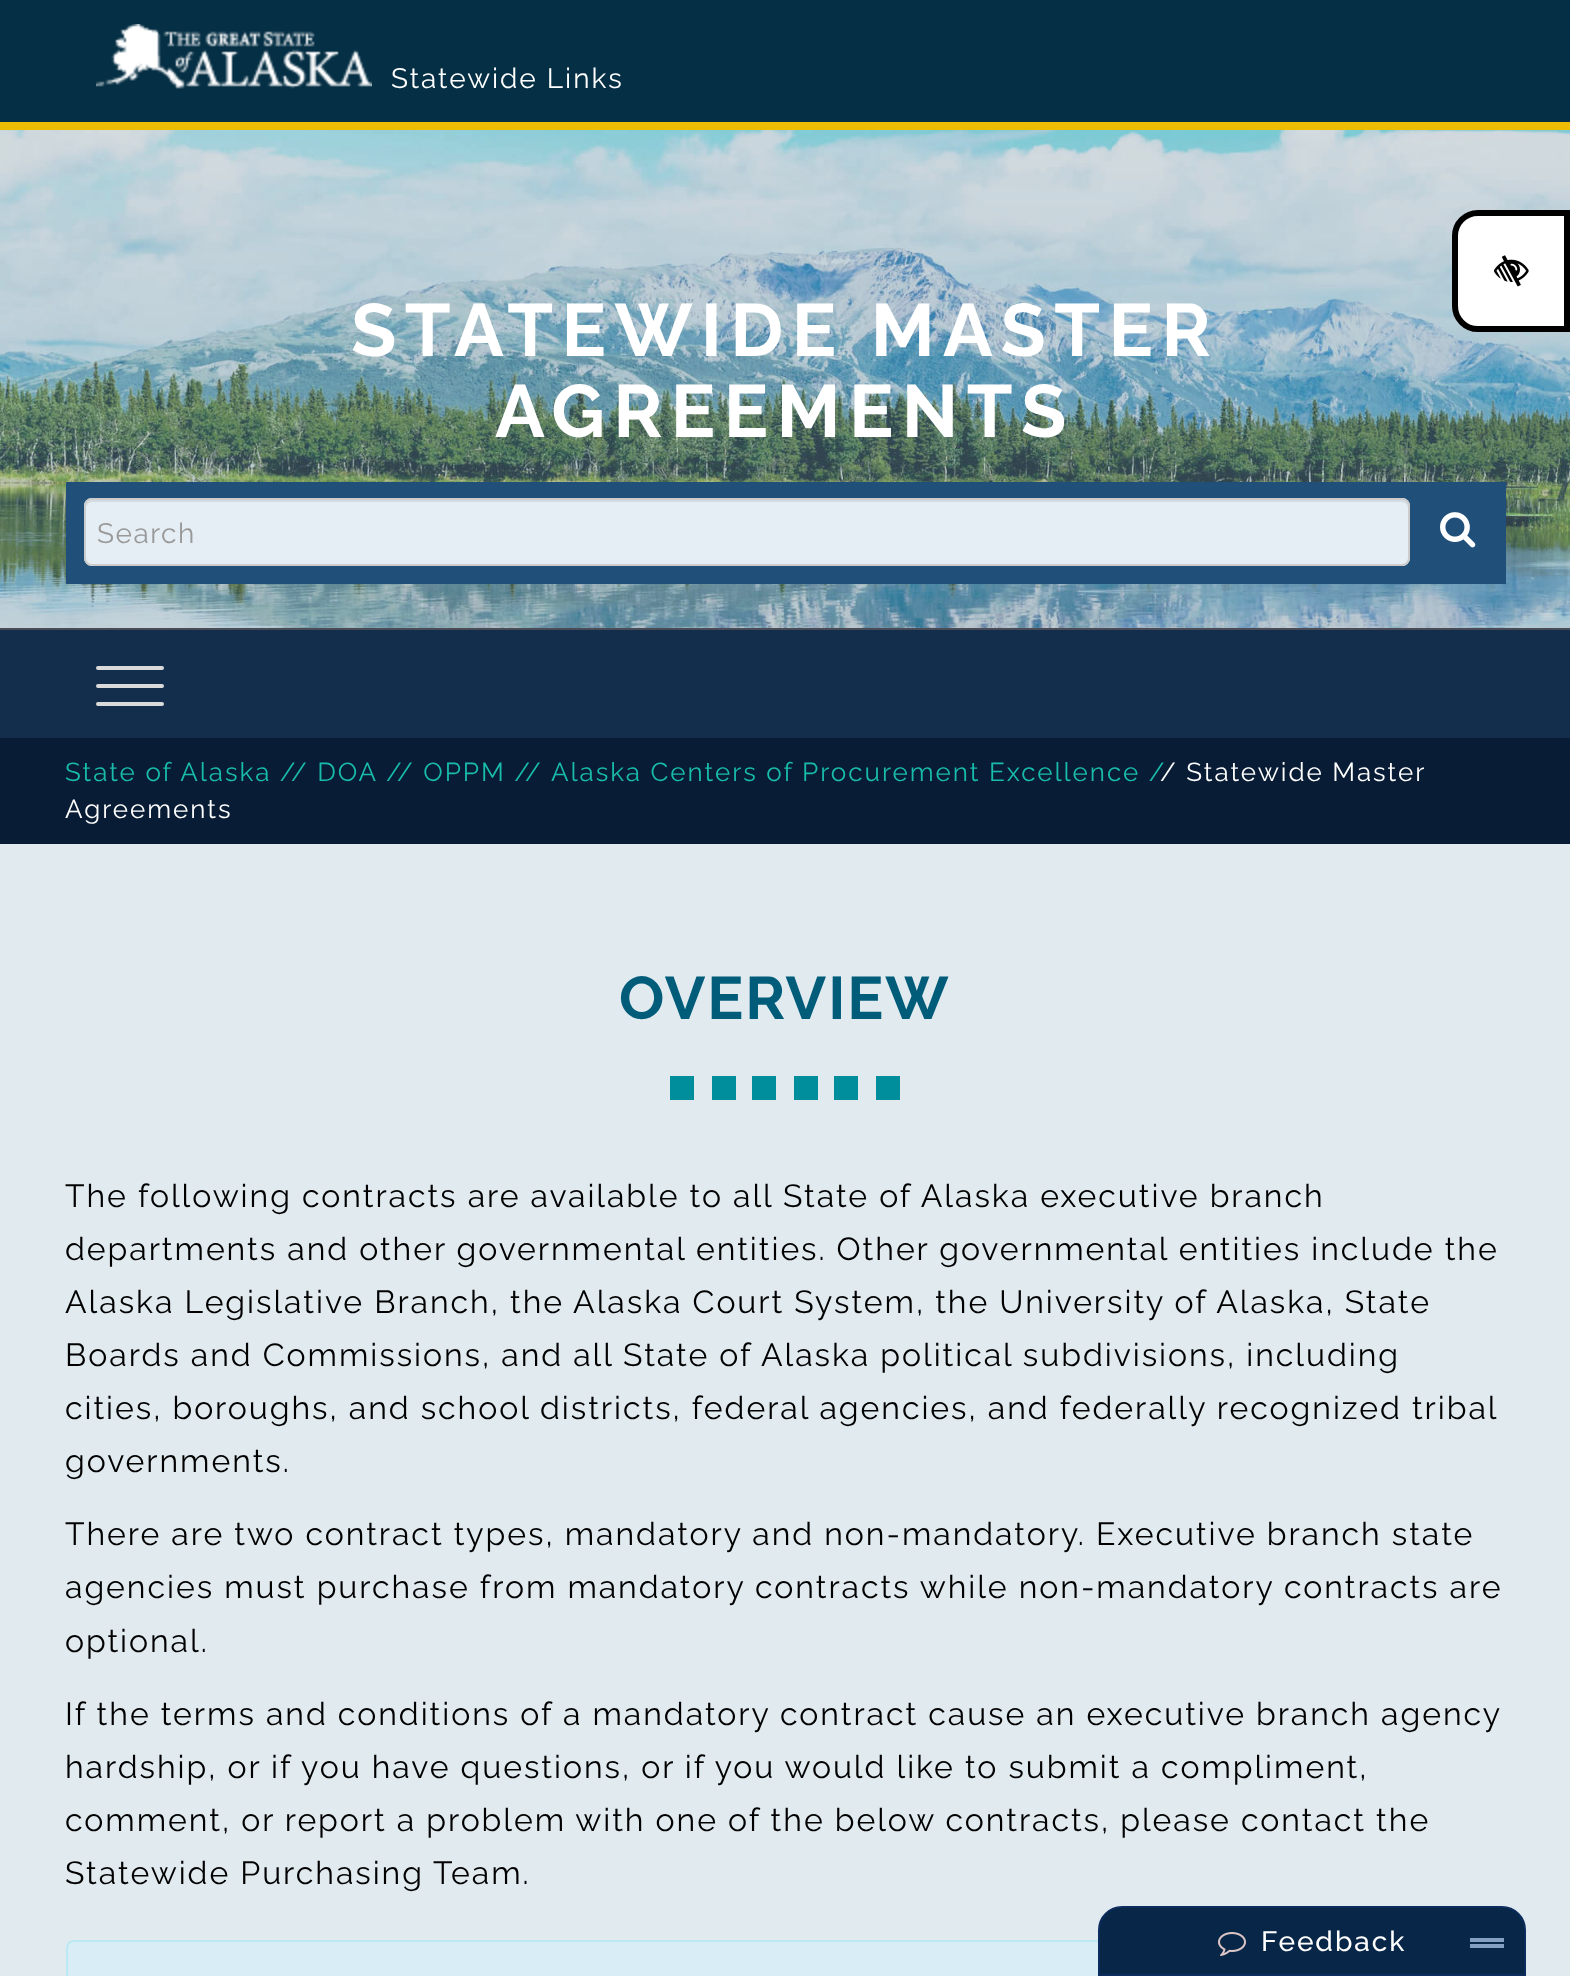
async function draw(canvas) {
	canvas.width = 1570;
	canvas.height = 1976;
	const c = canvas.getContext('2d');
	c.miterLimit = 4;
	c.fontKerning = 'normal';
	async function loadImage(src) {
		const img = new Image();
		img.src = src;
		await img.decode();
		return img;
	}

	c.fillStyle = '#fff';
	c.fillRect(0, 0, 1570, 1976);
	c.fillStyle = '#052f44';
	c.fillRect(0, 0, 1570, 122);
	c.fillStyle = '#edbd03';
	c.fillRect(0, 122, 1570, 8);
	c.drawImage(await loadImage('img1.png'), 96, 24, 276, 65);
	c.letterSpacing = '1.95px';
	c.font = '28px Raleway';
	c.fillStyle = '#fff';
	c.fillText('Statewide Links', 391, 88);
	c.drawImage(await loadImage('img2.png'), 0, 130, 1570, 498);
	c.beginPath();
	c.roundRect(1455, 213, 112, 116, [23, 0, 0, 23]);
	c.fill();
	c.strokeStyle = '#000';
	c.lineWidth = 6;
	c.stroke();
	c.drawImage(await loadImage('img3.png'), 1494, 255, 35, 32);
	c.letterSpacing = '8.4px';
	c.font = 'bold 74px Raleway';
	c.fillText('STATEWIDE MASTER', 351, 356);
	c.fillText('AGREEMENTS', 495, 437);
	c.fillStyle = '#204f79';
	c.fillRect(66, 482, 1440, 102);
	c.fillStyle = '#e5eef5';
	c.beginPath();
	c.roundRect(84, 498, 1326, 68, 8);
	c.fill();
	c.fillStyle = '#d4dce3';
	c.beginPath();
	c.moveTo(92, 502);
	c.lineTo(1402, 502);
	c.bezierCurveTo(1405, 502, 1408, 505, 1408, 508);
	c.lineTo(1408, 506);
	c.bezierCurveTo(1408, 503, 1405, 500, 1402, 500);
	c.lineTo(92, 500);
	c.bezierCurveTo(89, 500, 86, 503, 86, 506);
	c.lineTo(86, 508);
	c.bezierCurveTo(86, 505, 89, 502, 92, 502);
	c.closePath();
	c.fill();
	c.beginPath();
	c.roundRect(85, 499, 1324, 66, 7);
	c.strokeStyle = '#ccc';
	c.lineWidth = 2;
	c.stroke();
	c.letterSpacing = '1.5px';
	c.font = '28px Raleway';
	c.fillStyle = '#999';
	c.fillText('Search', 97, 543);
	c.drawImage(await loadImage('img4.png'), 1440, 512, 36, 36);
	for (const [x, y, w, h, color] of [
		[0, 738, 1570, 106, '#081c35'],
		[0, 628, 1570, 2, '#494c56'],
		[0, 630, 1570, 108, '#122e4c'],
	]) {
		c.fillStyle = color;
		c.fillRect(x, y, w, h);
	}
	c.fillStyle = '#dadada';
	c.beginPath();
	c.roundRect(96, 684, 68, 4, 2);
	c.fill();
	c.beginPath();
	c.roundRect(96, 666, 68, 4, 2);
	c.fill();
	c.beginPath();
	c.roundRect(96, 702, 68, 4, 2);
	c.fill();
	c.letterSpacing = '1.95px';
	c.font = '26px Raleway';
	c.fillStyle = '#19bbaa';
	for (const [text, x, y] of [
		['State of Alaska /', 65, 781],
		['/ DOA', 291, 781],
		['/', 386, 781],
		['/ OPPM /', 397, 781],
		['/', 525, 781],
		['Alaska Centers of Procurement Excellence /', 551, 781],
	]) {
		c.fillText(text, x, y);
	}
	c.fillStyle = '#fff';
	c.fillText('/ Statewide Master', 1160, 781);
	c.fillText('Agreements', 65, 818);
	c.fillStyle = '#e0eaef';
	c.fillRect(0, 844, 1570, 1132);
	c.font = 'bold 60px Raleway';
	c.fillStyle = '#015c7a';
	c.fillText('OVERVIEW', 619, 1019);
	for (const [x, y, w, h, color] of [
		[670, 1076, 24, 24, '#008d9c'],
		[712, 1076, 24, 24, '#008d9c'],
		[752, 1076, 24, 24, '#008d9c'],
		[794, 1076, 24, 24, '#008d9c'],
		[834, 1076, 24, 24, '#008d9c'],
		[876, 1076, 24, 24, '#008d9c'],
	]) {
		c.fillStyle = color;
		c.fillRect(x, y, w, h);
	}
	c.font = '32px Raleway';
	c.fillStyle = '#000';
	for (const [text, x, y] of [
		['The following contracts are available to all State of Alaska executive branch', 65, 1207],
		['departments and other governmental entities. Other governmental entities include the', 65, 1260],
		['Alaska Legislative Branch, the Alaska Court System, the University of Alaska, State', 65, 1313],
		['Boards and Commissions, and all State of Alaska political subdivisions, including', 65, 1366],
		['cities, boroughs, and school districts, federal agencies, and federally recognized tribal', 65, 1419],
		['governments.', 65, 1472],
		['There are two contract types, mandatory and non-mandatory. Executive branch state', 65, 1545],
		['agencies must purchase from mandatory contracts while non-mandatory contracts are', 65, 1598],
		['optional.', 65, 1652],
		['If the terms and conditions of a mandatory contract cause an executive branch agency', 65, 1725],
		['hardship, or if you have questions, or if you would like to submit a compliment,', 65, 1778],
		['comment, or report a problem with one of the below contracts, please contact the', 65, 1831],
		['Statewide Purchasing Team.', 65, 1884],
	]) {
		c.fillText(text, x, y);
	}
	c.fillStyle = '#d9edf7';
	c.beginPath();
	c.roundRect(67, 1941, 1438, 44, 7);
	c.fill();
	c.strokeStyle = '#bce8f1';
	c.stroke();
	c.fillStyle = '#082647';
	c.beginPath();
	c.roundRect(1099, 1907, 426, 68, [23, 23, 0, 0]);
	c.fill();
	c.strokeStyle = '#0c2c5e';
	c.stroke();
	c.drawImage(await loadImage('img5.png'), 1218, 1932, 28, 24);
	c.font = '500 28px Raleway';
	c.fillStyle = '#fff';
	c.fillText('Feedback', 1261, 1951);
	c.fillStyle = '#849fc1';
	c.fillRect(1470, 1938, 34, 4);
	c.fillRect(1470, 1944, 34, 4);
}

draw(document.querySelector('canvas'));
